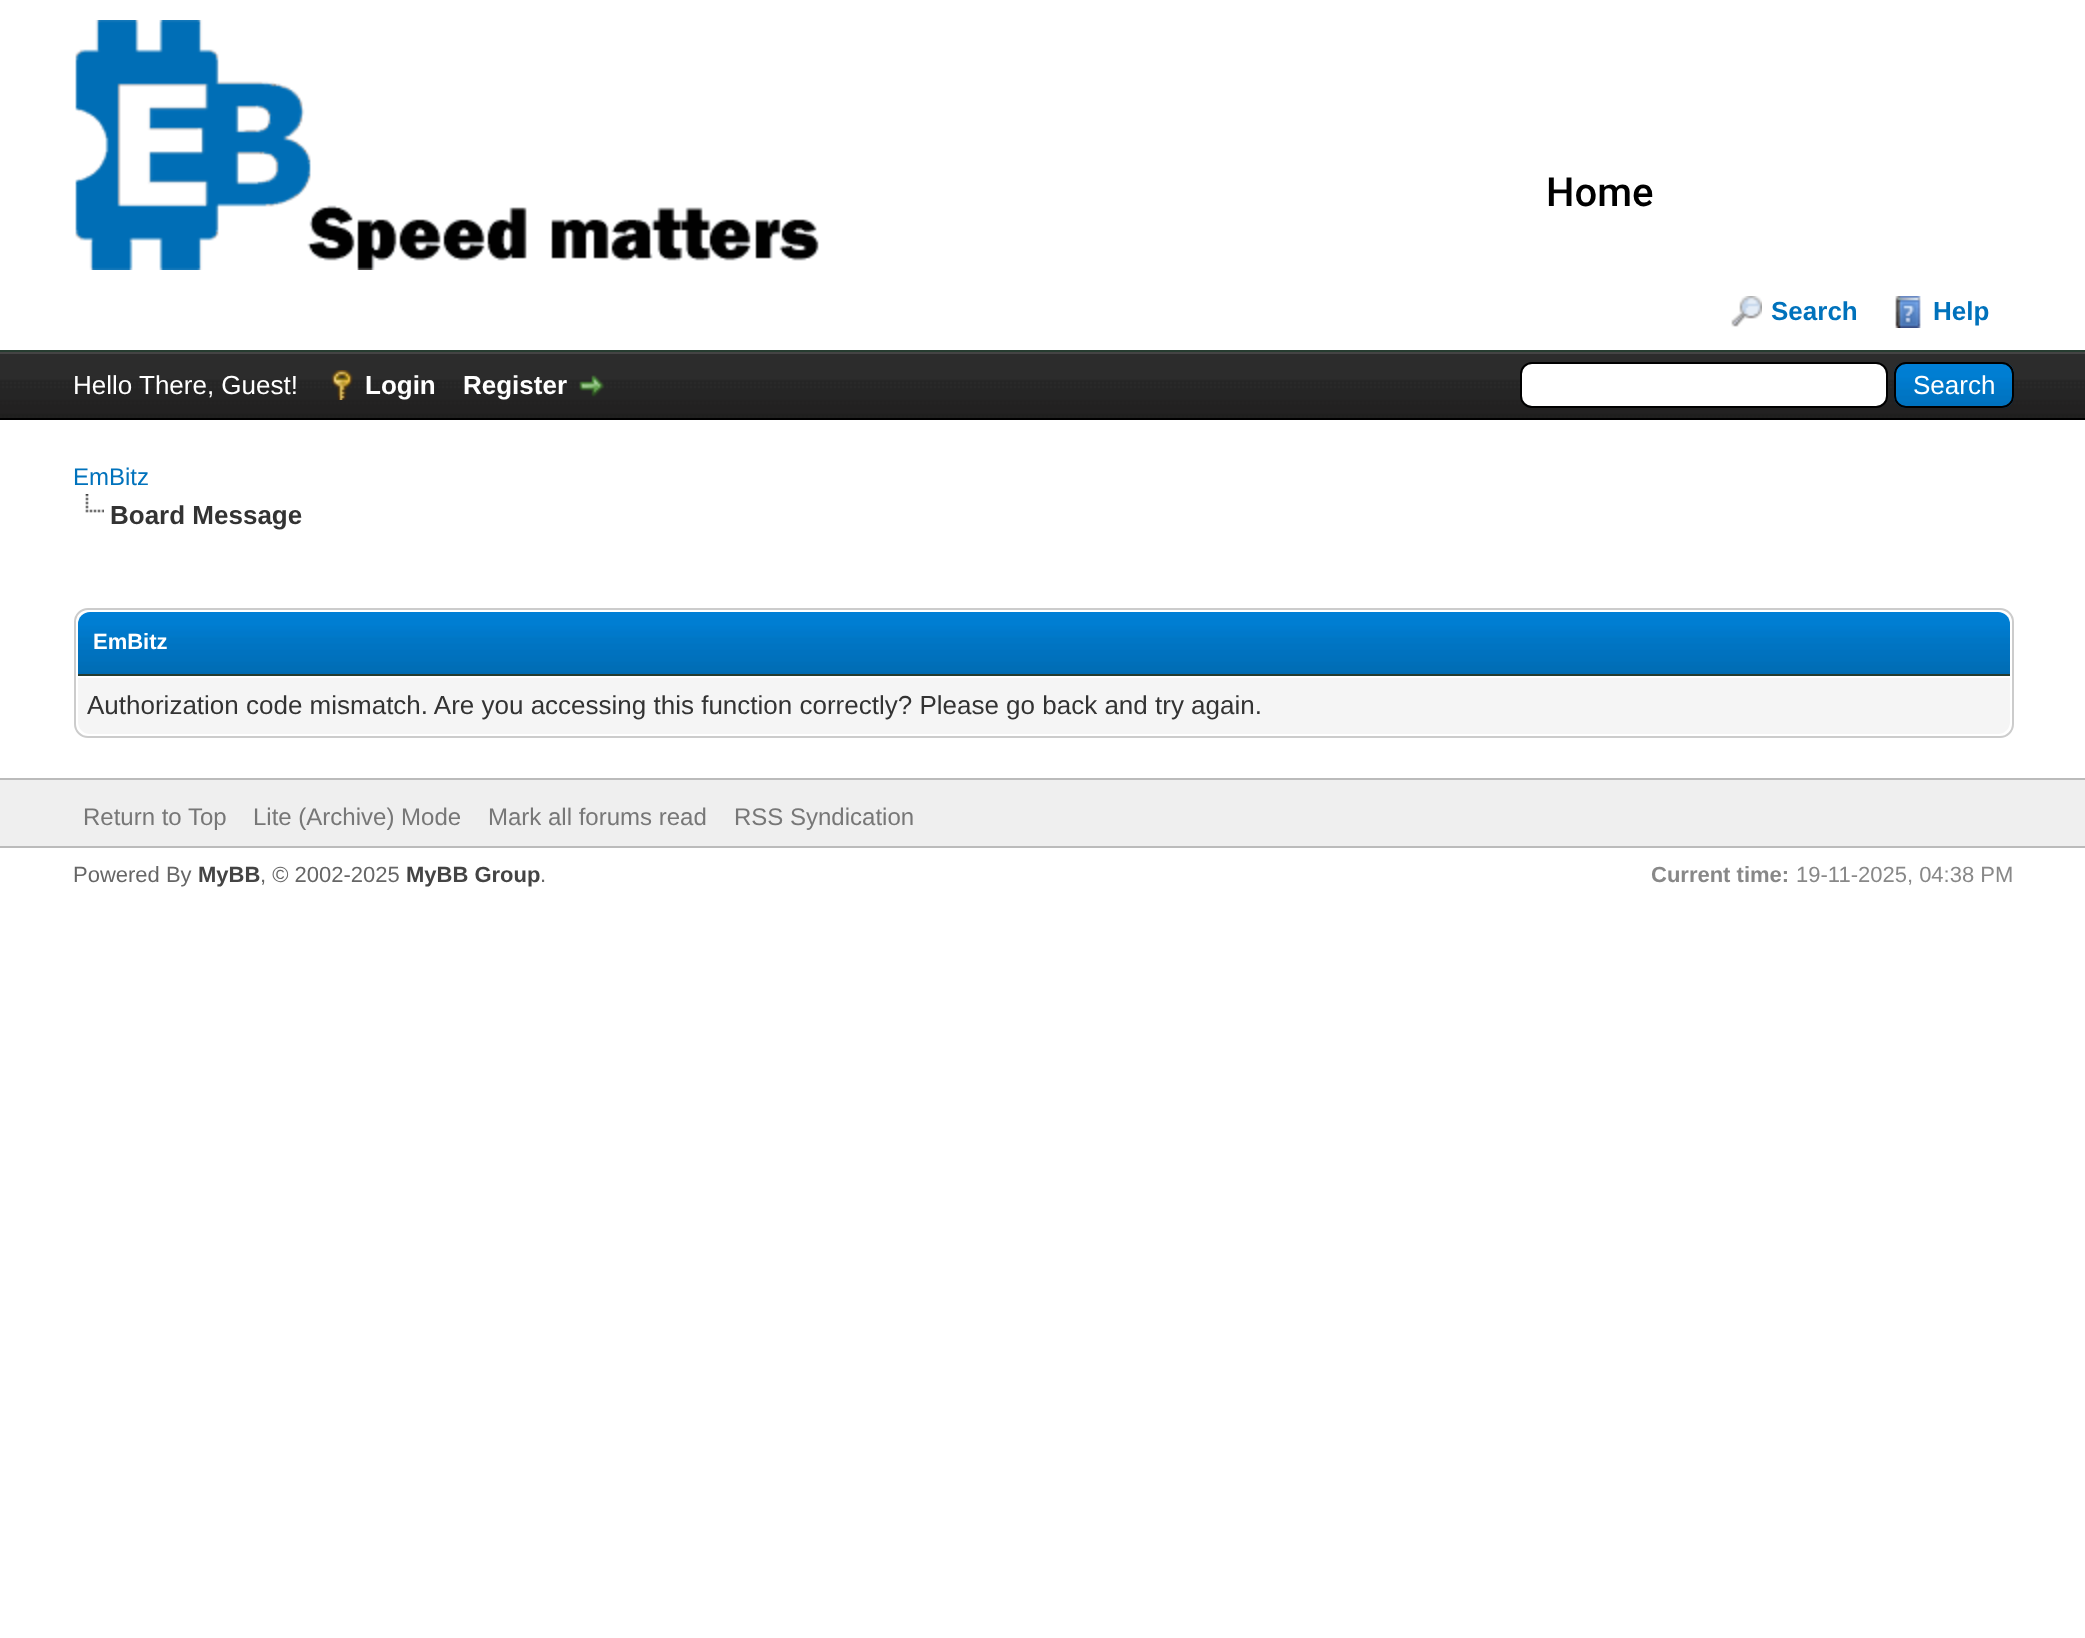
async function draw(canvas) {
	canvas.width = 2085;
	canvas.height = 1638;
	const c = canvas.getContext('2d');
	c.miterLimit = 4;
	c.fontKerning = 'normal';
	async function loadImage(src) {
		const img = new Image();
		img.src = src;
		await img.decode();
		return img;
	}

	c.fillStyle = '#fff';
	c.fillRect(0, 0, 2085, 1638);
	c.fillStyle = '#263c30';
	c.fillRect(0, 350, 2085, 2);
	c.drawImage(await loadImage('img1.png'), 75, 20, 744, 250);
	c.font = '500 40px Roboto';
	c.fillStyle = '#000';
	c.fillText('Home', 1546, 206);
	c.drawImage(await loadImage('img2.png'), 1731, 296, 31, 31);
	c.font = 'bold 26px Liberation Sans';
	c.fillStyle = '#0072bc';
	c.fillText('Search', 1771, 320);
	c.drawImage(await loadImage('img3.png'), 1895, 296, 26, 32);
	c.fillText('Help', 1933, 320);
	c.drawImage(await loadImage('img4.png'), 0, 354, 2085, 64);
	c.fillStyle = '#444';
	c.fillRect(0, 352, 2085, 2);
	c.fillStyle = '#000';
	c.fillRect(0, 418, 2085, 2);
	c.font = '26px Liberation Sans';
	c.fillStyle = '#fff';
	c.fillText('Hello There, Guest!', 73, 394);
	c.drawImage(await loadImage('img5.png'), 331, 370, 22, 30);
	c.font = 'bold 26px Liberation Sans';
	c.fillText('Login', 365, 394);
	c.fillText('Register', 463, 394);
	c.drawImage(await loadImage('img6.png'), 579, 375, 26, 22);
	c.beginPath();
	c.roundRect(1521, 363, 366, 44, 11);
	c.fill();
	c.strokeStyle = '#000';
	c.lineWidth = 2;
	c.stroke();
	c.drawImage(await loadImage('img7.png'), 1894, 364, 120, 44);
	c.beginPath();
	c.roundRect(1895, 363, 118, 44, 11);
	c.stroke();
	c.font = '26px Liberation Sans';
	c.fillText('Search', 1913, 394);
	c.font = '24px Liberation Sans';
	c.fillStyle = '#0072bc';
	c.fillText('EmBitz', 73, 485);
	c.drawImage(await loadImage('img8.png'), 85, 494, 19, 19);
	c.font = 'bold 26px Liberation Sans';
	c.fillStyle = '#333';
	c.fillText('Board Message', 110, 524);
	c.beginPath();
	c.roundRect(75, 609, 1938, 128, 13);
	c.strokeStyle = '#ccc';
	c.stroke();
	c.drawImage(await loadImage('img9.png'), 78, 612, 1932, 62);
	c.fillStyle = '#263c30';
	c.fillRect(78, 674, 1932, 2);
	c.font = 'bold 22px Liberation Sans';
	c.fillStyle = '#fff';
	c.fillText('EmBitz', 93, 649);
	c.fillStyle = '#f5f5f5';
	c.beginPath();
	c.roundRect(78, 676, 1932, 58, [0, 0, 12, 12]);
	c.fill();
	c.fillStyle = '#fff';
	c.fillRect(78, 676, 1932, 2);
	c.font = '26px Liberation Sans';
	c.fillStyle = '#333';
	c.fillText('Authorization code mismatch. Are you accessing this function correctly? Please go back and try again.', 87, 714);
	for (const [x, y, w, h, color] of [
		[0, 780, 2085, 66, '#efefef'],
		[0, 778, 2085, 2, '#bbb'],
		[0, 846, 2085, 2, '#bbb'],
	]) {
		c.fillStyle = color;
		c.fillRect(x, y, w, h);
	}
	c.font = '24px Liberation Sans';
	c.fillStyle = '#777';
	for (const [text, x, y] of [
		['Return to Top', 83, 825],
		['Lite (Archive) Mode', 253, 825],
		['Mark all forums read', 488, 825],
		['RSS Syndication', 734, 825],
	]) {
		c.fillText(text, x, y);
	}
	c.font = '22px Liberation Sans';
	c.fillStyle = '#666';
	c.fillText('Powered By', 73, 882);
	c.font = 'bold 22px Liberation Sans';
	c.fillStyle = '#444';
	c.fillText('MyBB', 198, 882);
	c.font = '22px Liberation Sans';
	c.fillStyle = '#666';
	c.fillText(', © 2002-2025', 260, 882);
	c.font = 'bold 22px Liberation Sans';
	c.fillStyle = '#444';
	c.fillText('MyBB Group', 406, 882);
	c.font = '22px Liberation Sans';
	c.fillStyle = '#666';
	c.fillText('.', 540, 882);
	c.font = 'bold 22px Liberation Sans';
	c.fillStyle = '#888';
	c.fillText('Current time:', 1651, 882);
	c.font = '22px Liberation Sans';
	c.fillText('19-11-2025, 04:38 PM', 1796, 882);
}

draw(document.querySelector('canvas'));
